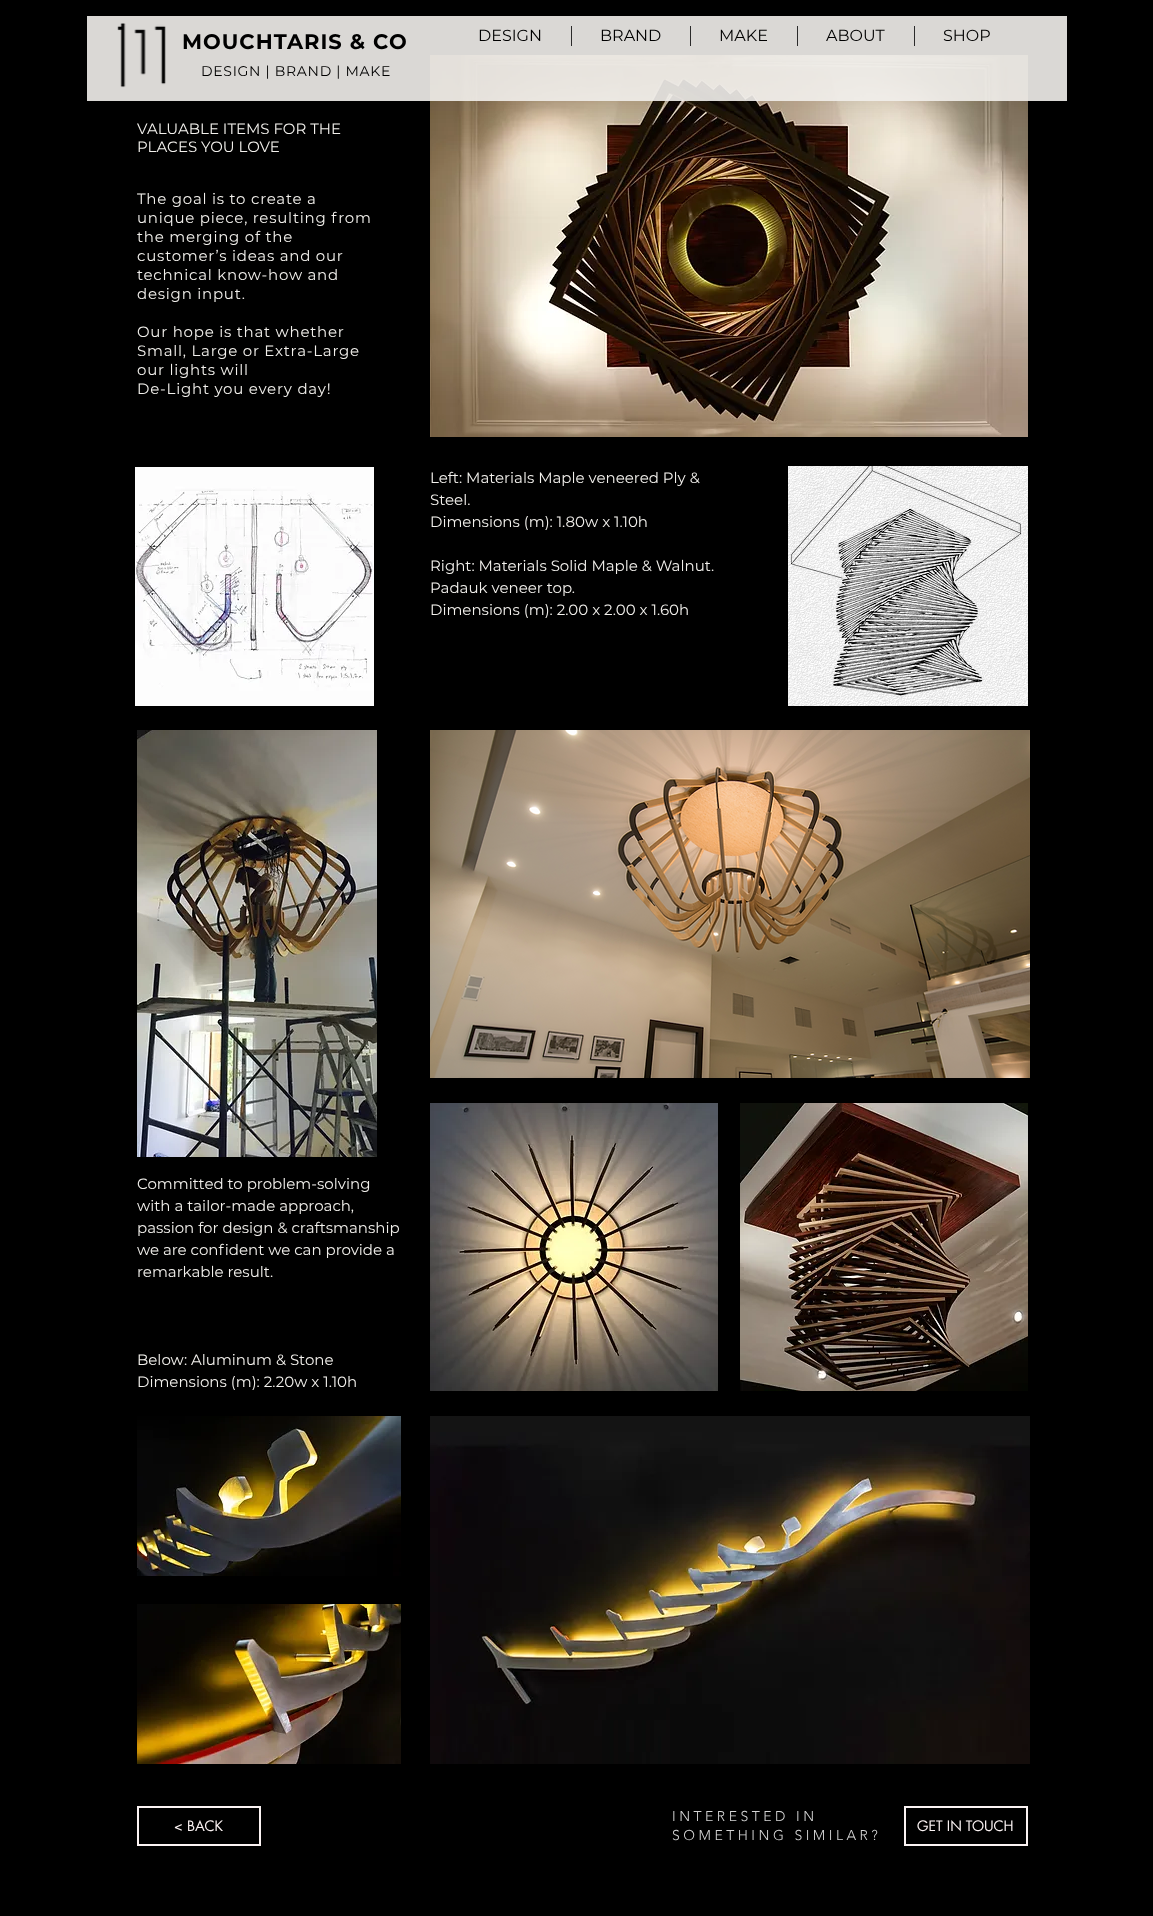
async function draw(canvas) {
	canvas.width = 1153;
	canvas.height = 1916;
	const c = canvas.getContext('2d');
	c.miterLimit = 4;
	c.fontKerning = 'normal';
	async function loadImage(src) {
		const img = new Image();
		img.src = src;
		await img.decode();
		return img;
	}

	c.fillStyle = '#000';
	c.fillRect(0, 0, 1153, 1916);
	c.drawImage(await loadImage('img2.png'), 430, 55, 598, 382);
	c.fillStyle = '#f2f0ece6';
	c.fillRect(87, 16, 980, 85);
	c.drawImage(await loadImage('img1.png'), 117, 23, 49, 65);
	c.letterSpacing = '1px';
	c.font = 'bold 21px Montserrat';
	c.fillStyle = '#000';
	c.fillText('MOUCHTARIS & CO', 182, 49);
	c.letterSpacing = '0.7px';
	c.font = '14px Montserrat';
	c.fillText('DESIGN | BRAND | MAKE', 201, 76);
	c.letterSpacing = '0px';
	c.font = '16px Montserrat';
	c.fillText('DESIGN', 478, 41);
	c.fillStyle = '#2b2b2b';
	c.fillRect(571, 26, 1, 20);
	c.fillStyle = '#000';
	c.fillText('BRAND', 600, 41);
	c.fillStyle = '#2b2b2b';
	c.fillRect(690, 26, 1, 20);
	c.fillStyle = '#000';
	c.fillText('MAKE', 719, 41);
	c.fillStyle = '#2b2b2b';
	c.fillRect(797, 26, 1, 20);
	c.fillStyle = '#000';
	c.fillText('ABOUT', 826, 41);
	c.fillStyle = '#2b2b2b';
	c.fillRect(914, 26, 1, 20);
	c.fillStyle = '#000';
	c.fillText('SHOP', 943, 41);
	c.font = '15px Montserrat';
	c.fillStyle = '#f2f0ec';
	c.fillText('VALUABLE ITEMS FOR THE', 137, 134);
	c.fillText('PLACES YOU LOVE', 137, 152);
	c.letterSpacing = '0.75px';
	for (const [text, x, y] of [
		['The goal is to create a', 137, 204],
		['unique piece, resulting from', 137, 223],
		['the merging of the', 137, 242],
		['customer’s ideas and our', 137, 261],
		['technical know-how and', 137, 280],
		['design input.', 137, 299],
		['Our hope is that whether', 137, 337],
		['Small, Large or Extra-Large', 137, 356],
		['our lights will', 137, 375],
		['De-Light you every day!', 137, 394],
	]) {
		c.fillText(text, x, y);
	}
	c.drawImage(await loadImage('img3.png'), 135, 467, 239, 239);
	c.letterSpacing = '0px';
	for (const [text, x, y] of [
		['Left: Materials Maple veneered Ply &', 430, 483],
		['Steel.', 430, 505],
		['Dimensions (m): 1.80w x 1.10h', 430, 527],
		['Right: Materials Solid Maple & Walnut.', 430, 571],
		['Padauk veneer top.', 430, 593],
		['Dimensions (m): 2.00 x 2.00 x 1.60h', 430, 615],
	]) {
		c.fillText(text, x, y);
	}
	c.drawImage(await loadImage('img4.png'), 788, 466, 240, 240);
	c.drawImage(await loadImage('img5.png'), 788, 466, 240, 240);
	c.drawImage(await loadImage('img6.png'), 137, 730, 240, 427);
	c.drawImage(await loadImage('img7.png'), 430, 730, 600, 348);
	for (const [text, x, y] of [
		['Committed to problem-solving', 137, 1189],
		['with a tailor-made approach,', 137, 1211],
		['passion for design & craftsmanship', 137, 1233],
		['we are confident we can provide a', 137, 1255],
		['remarkable result.', 137, 1277],
		['Below: Aluminum & Stone', 137, 1365],
		['Dimensions (m): 2.20w x 1.10h', 137, 1387],
	]) {
		c.fillText(text, x, y);
	}
	c.drawImage(await loadImage('img8.png'), 430, 1103, 288, 288);
	c.drawImage(await loadImage('img9.png'), 740, 1103, 288, 288);
	c.drawImage(await loadImage('img10.png'), 137, 1416, 264, 160);
	c.drawImage(await loadImage('img11.png'), 430, 1416, 600, 348);
	c.drawImage(await loadImage('img12.png'), 137, 1604, 264, 160);
	c.strokeStyle = '#fbf3f3';
	c.lineWidth = 2;
	c.strokeRect(138, 1807, 122, 38);
	c.font = '14px futura';
	c.fillStyle = '#fbf3f3';
	c.fillText('< BACK', 174, 1831);
	c.letterSpacing = '3.5px';
	c.font = '300 14px "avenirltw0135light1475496"';
	c.fillStyle = '#d5d5d5';
	c.fillText('INTERESTED IN', 672, 1821);
	c.fillText('SOMETHING SIMILAR?', 672, 1840);
	c.strokeRect(905, 1807, 122, 38);
	c.letterSpacing = '0px';
	c.font = '14px futura';
	c.fillStyle = '#fbf3f3';
	c.fillText('GET IN TOUCH', 917, 1831);
}

draw(document.querySelector('canvas'));
